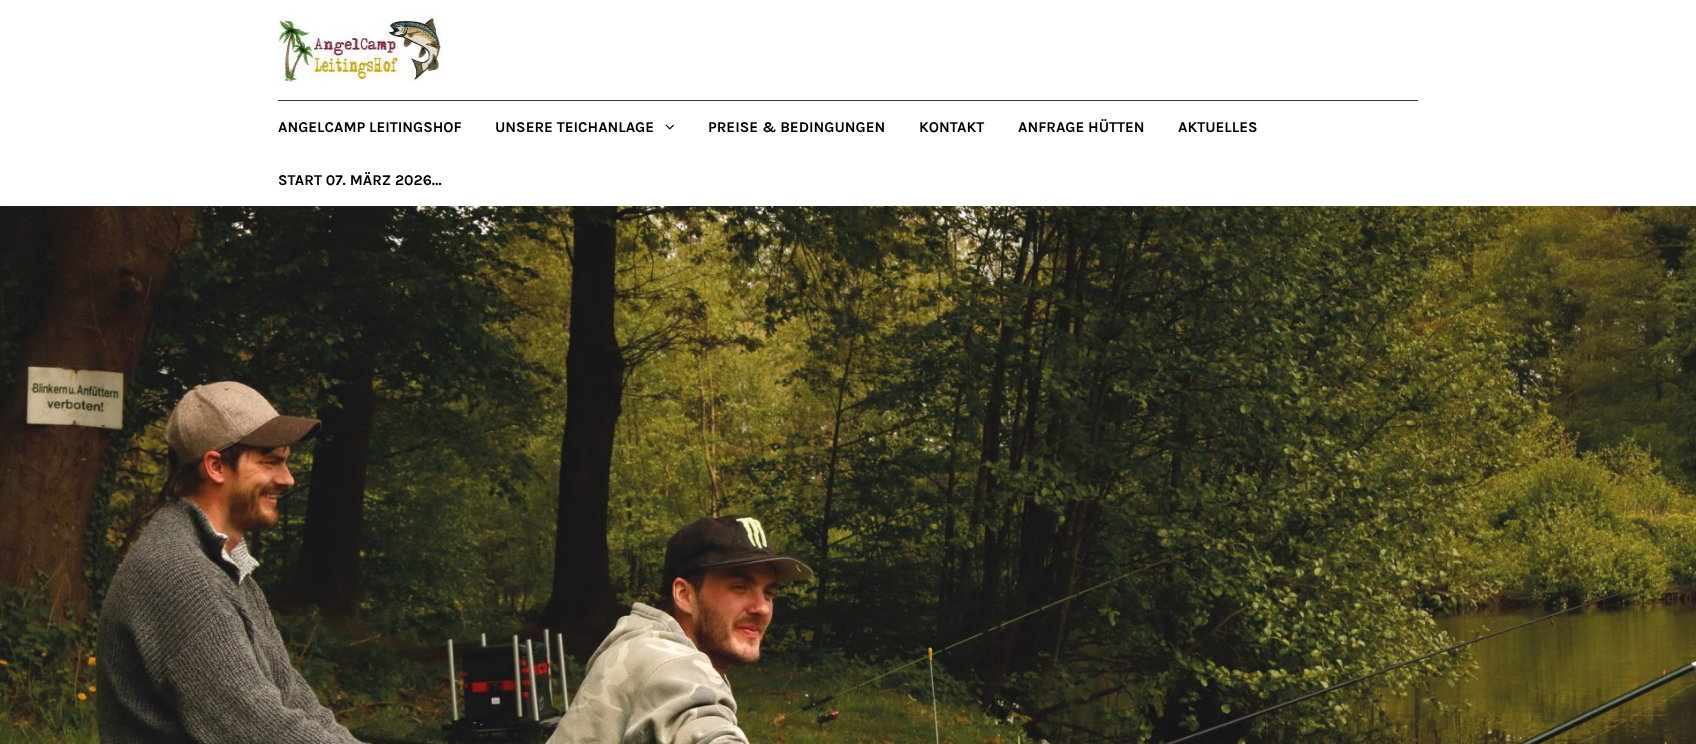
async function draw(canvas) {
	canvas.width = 1696;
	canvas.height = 744;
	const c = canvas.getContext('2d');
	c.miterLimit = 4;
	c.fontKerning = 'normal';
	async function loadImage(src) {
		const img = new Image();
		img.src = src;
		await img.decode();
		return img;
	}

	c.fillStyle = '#fff';
	c.fillRect(0, 0, 1696, 744);
	c.drawImage(await loadImage('img1.png'), 278, 15, 165, 70);
	c.fillStyle = '#35373e';
	c.fillRect(278, 100, 1140, 1);
	c.font = 'bold 15px Karla';
	c.fillStyle = '#000';
	c.fillText('ANGELCAMP LEITINGSHOF', 278, 132);
	c.fillText('UNSERE TEICHANLAGE', 495, 132);
	c.drawImage(await loadImage('img2.png'), 665, 124, 9, 6);
	for (const [text, x, y] of [
		['PREISE & BEDINGUNGEN', 708, 132],
		['KONTAKT', 919, 132],
		['ANFRAGE HÜTTEN', 1018, 132],
		['AKTUELLES', 1178, 132],
		['START 07. MÄRZ 2026…', 278, 185],
	]) {
		c.fillText(text, x, y);
	}
	c.drawImage(await loadImage('img3.png'), 0, 206, 1696, 538);
}

draw(document.querySelector('canvas'));
